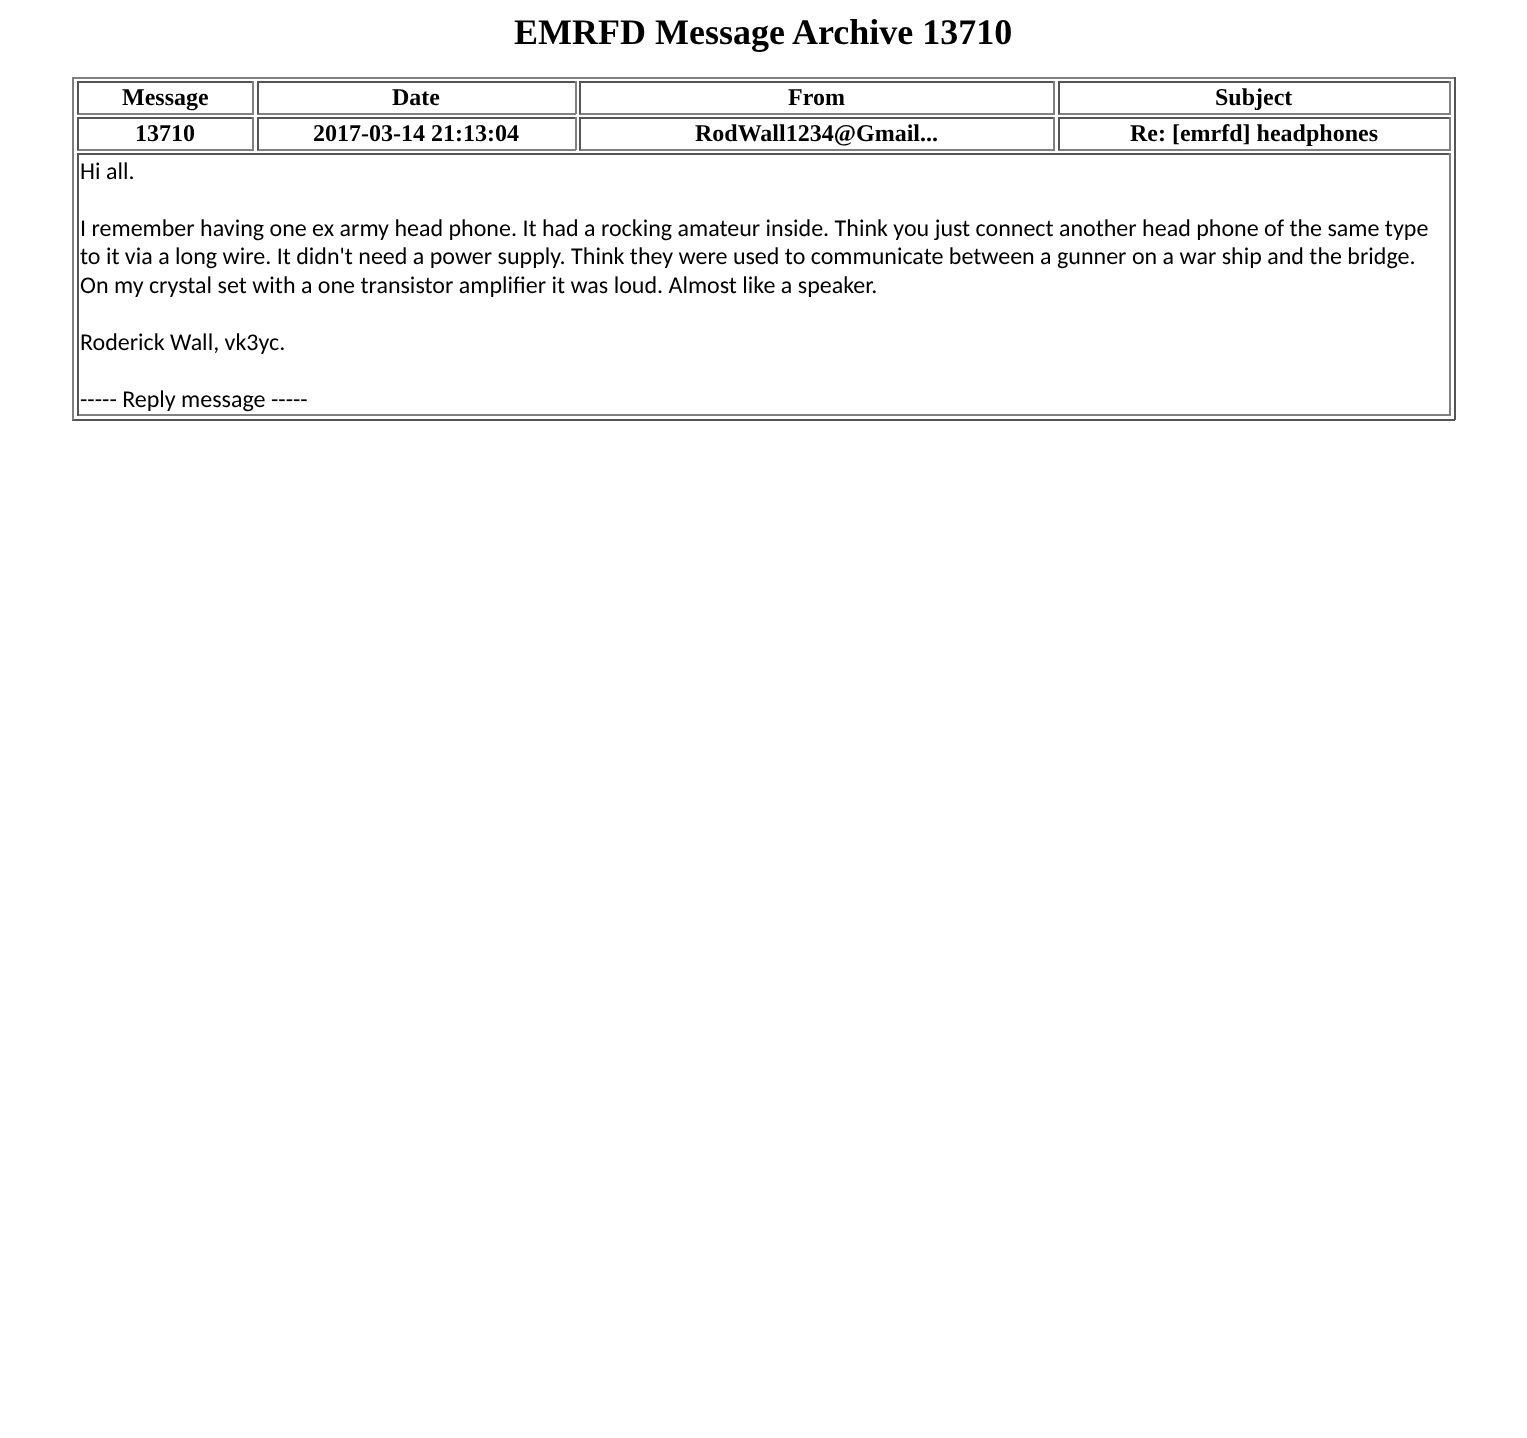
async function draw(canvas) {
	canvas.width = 1527;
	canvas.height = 1438;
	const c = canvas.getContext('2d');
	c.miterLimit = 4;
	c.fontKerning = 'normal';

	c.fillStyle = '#fff';
	c.fillRect(0, 0, 1527, 1438);
	c.font = 'bold 36px Liberation Serif';
	c.fillStyle = '#000';
	c.fillText('EMRFD Message Archive 13710', 514, 44);
	for (const [x, y, w, h, color] of [
		[72, 77, 1383, 2, '#808080'],
		[1454, 77, 2, 343, '#555'],
		[72, 419, 1383, 2, '#555'],
		[72, 77, 2, 343, '#808080'],
		[77, 81, 177, 2, '#555'],
		[252, 81, 2, 33, '#808080'],
		[77, 113, 177, 2, '#808080'],
		[77, 81, 2, 33, '#555'],
	]) {
		c.fillStyle = color;
		c.fillRect(x, y, w, h);
	}
	c.font = 'bold 24px Liberation Serif';
	c.fillStyle = '#000';
	c.fillText('Message', 122, 105);
	for (const [x, y, w, h, color] of [
		[257, 81, 319, 2, '#555'],
		[575, 81, 2, 33, '#808080'],
		[257, 113, 319, 2, '#808080'],
		[257, 81, 2, 33, '#555'],
	]) {
		c.fillStyle = color;
		c.fillRect(x, y, w, h);
	}
	c.fillStyle = '#000';
	c.fillText('Date', 392, 105);
	for (const [x, y, w, h, color] of [
		[579, 81, 476, 2, '#555'],
		[1053, 81, 2, 33, '#808080'],
		[579, 113, 476, 2, '#808080'],
		[579, 81, 2, 33, '#555'],
	]) {
		c.fillStyle = color;
		c.fillRect(x, y, w, h);
	}
	c.fillStyle = '#000';
	c.fillText('From', 788, 105);
	for (const [x, y, w, h, color] of [
		[1058, 81, 393, 2, '#555'],
		[1449, 81, 2, 33, '#808080'],
		[1058, 113, 393, 2, '#808080'],
		[1058, 81, 2, 33, '#555'],
	]) {
		c.fillStyle = color;
		c.fillRect(x, y, w, h);
	}
	c.fillStyle = '#000';
	c.fillText('Subject', 1215, 105);
	for (const [x, y, w, h, color] of [
		[77, 117, 177, 2, '#555'],
		[252, 117, 2, 33, '#808080'],
		[77, 149, 177, 2, '#808080'],
		[77, 117, 2, 33, '#555'],
	]) {
		c.fillStyle = color;
		c.fillRect(x, y, w, h);
	}
	c.fillStyle = '#000';
	c.fillText('13710', 135, 141);
	for (const [x, y, w, h, color] of [
		[257, 117, 319, 2, '#555'],
		[575, 117, 2, 33, '#808080'],
		[257, 149, 319, 2, '#808080'],
		[257, 117, 2, 33, '#555'],
	]) {
		c.fillStyle = color;
		c.fillRect(x, y, w, h);
	}
	c.fillStyle = '#000';
	c.fillText('2017-03-14 21:13:04', 313, 141);
	for (const [x, y, w, h, color] of [
		[579, 117, 476, 2, '#555'],
		[1053, 117, 2, 33, '#808080'],
		[579, 149, 476, 2, '#808080'],
		[579, 117, 2, 33, '#555'],
	]) {
		c.fillStyle = color;
		c.fillRect(x, y, w, h);
	}
	c.fillStyle = '#000';
	c.fillText('RodWall1234@Gmail...', 695, 141);
	for (const [x, y, w, h, color] of [
		[1058, 117, 393, 2, '#555'],
		[1449, 117, 2, 33, '#808080'],
		[1058, 149, 393, 2, '#808080'],
		[1058, 117, 2, 33, '#555'],
	]) {
		c.fillStyle = color;
		c.fillRect(x, y, w, h);
	}
	c.fillStyle = '#000';
	c.fillText('Re: [emrfd] headphones', 1130, 141);
	for (const [x, y, w, h, color] of [
		[77, 153, 1374, 2, '#555'],
		[1449, 153, 2, 263, '#808080'],
		[77, 414, 1374, 2, '#808080'],
		[77, 153, 2, 263, '#555'],
	]) {
		c.fillStyle = color;
		c.fillRect(x, y, w, h);
	}
	c.font = '24px Carlito';
	c.fillStyle = '#000';
	for (const [text, x, y] of [
		['Hi all.', 80, 179],
		['I remember having one ex army head phone. It had a rocking amateur inside. Think you just connect another head phone of the same type', 80, 236],
		['to it via a long wire. It didn\'t need a power supply. Think they were used to communicate between a gunner on a war ship and the bridge.', 80, 264],
		['On my crystal set with a one transistor amplifier it was loud. Almost like a speaker.', 80, 293],
		['Roderick Wall, vk3yc.', 80, 350],
		['----- Reply message -----', 80, 407],
	]) {
		c.fillText(text, x, y);
	}
}

draw(document.querySelector('canvas'));
